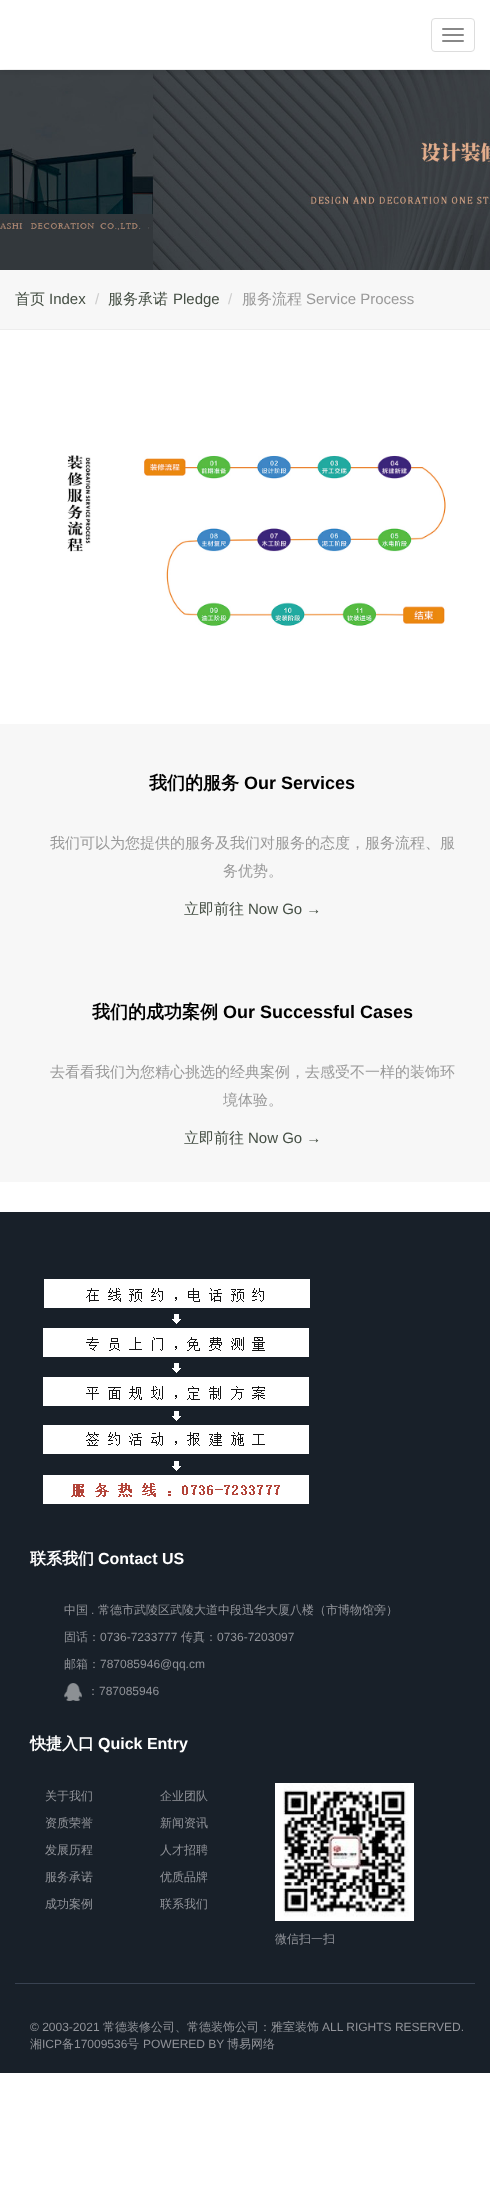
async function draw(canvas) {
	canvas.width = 490;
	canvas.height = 2198;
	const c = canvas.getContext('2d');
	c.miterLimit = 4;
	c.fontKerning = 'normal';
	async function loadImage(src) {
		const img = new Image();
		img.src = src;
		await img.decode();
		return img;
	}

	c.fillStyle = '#fff';
	c.fillRect(0, 0, 490, 2198);
	c.drawImage(await loadImage('img1.png'), 0, 70, 490, 200);
	c.save();
	c.beginPath();
	c.rect(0, 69, 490, 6);
	c.clip();
	c.fillStyle = '#00000026';
	c.filter = 'blur(5px)';
	c.beginPath();
	c.rect(0, 0, 490, 69);
	c.fill();
	c.filter = 'none';
	c.restore();
	c.beginPath();
	c.roundRect(431.5, 18.5, 43, 33, 3.5);
	c.strokeStyle = '#ddd';
	c.stroke();
	c.fillStyle = '#888';
	c.beginPath();
	c.roundRect(442, 28, 22, 2, 1);
	c.fill();
	c.beginPath();
	c.roundRect(442, 34, 22, 2, 1);
	c.fill();
	c.beginPath();
	c.roundRect(442, 40, 22, 2, 1);
	c.fill();
	c.fillStyle = '#f7f7f7';
	c.fillRect(0, 270, 490, 59);
	c.fillStyle = '#ededed';
	c.fillRect(0, 329, 490, 1);
	c.font = '500 15px WenQuanYi Zen Hei';
	c.fillStyle = '#444e43';
	c.fillText('首页', 15, 304);
	c.font = '15px Liberation Sans';
	c.fillText('Index', 49, 304);
	c.fillStyle = '#ccc';
	c.fillText('/', 95, 304);
	c.font = '500 15px WenQuanYi Zen Hei';
	c.fillStyle = '#444e43';
	c.fillText('服务承诺', 108, 304);
	c.font = '15px Liberation Sans';
	c.fillText('Pledge', 173, 304);
	c.fillStyle = '#ccc';
	c.fillText('/', 228, 304);
	c.font = '500 15px WenQuanYi Zen Hei';
	c.fillStyle = '#999';
	c.fillText('服务流程', 242, 304);
	c.font = '15px Liberation Sans';
	c.fillText('Service Process', 306, 304);
	c.drawImage(await loadImage('img2.png'), 67, 455, 379, 171);
	c.fillStyle = '#f7f7f7';
	c.fillRect(0, 724, 490, 458);
	c.font = 'bold 18px WenQuanYi Zen Hei';
	c.fillStyle = '#000';
	c.fillText('我们的服务', 149, 789);
	c.font = 'bold 18px Liberation Sans';
	c.fillText('Our Services', 244, 789);
	c.font = '500 15px WenQuanYi Zen Hei';
	c.fillStyle = '#999';
	c.fillText('我们可以为您提供的服务及我们对服务的态度，服务流程、服', 50, 848);
	c.fillText('务优势。', 223, 876);
	c.fillStyle = '#444e43';
	c.fillText('立即前往', 184, 914);
	c.font = '15px Liberation Sans';
	c.fillText('Now Go →', 248, 914);
	c.font = 'bold 18px WenQuanYi Zen Hei';
	c.fillStyle = '#000';
	c.fillText('我们的成功案例', 92, 1018);
	c.font = 'bold 18px Liberation Sans';
	c.fillText('Our Successful Cases', 223, 1018);
	c.font = '500 15px WenQuanYi Zen Hei';
	c.fillStyle = '#999';
	c.fillText('去看看我们为您精心挑选的经典案例，去感受不一样的装饰环', 50, 1077);
	c.fillText('境体验。', 223, 1105);
	c.fillStyle = '#444e43';
	c.fillText('立即前往', 184, 1143);
	c.font = '15px Liberation Sans';
	c.fillText('Now Go →', 248, 1143);
	c.fillStyle = '#182029';
	c.fillRect(0, 1212, 490, 861);
	c.drawImage(await loadImage('img3.png'), 43, 1279, 267, 225);
	c.font = 'bold 16px WenQuanYi Zen Hei';
	c.fillStyle = '#fff';
	c.fillText('联系我们', 30, 1564);
	c.font = 'bold 16px Liberation Sans';
	c.fillText('Contact US', 98, 1564);
	c.font = '500 12px WenQuanYi Zen Hei';
	c.fillStyle = '#919399';
	c.fillText('中国', 64, 1614);
	c.font = '12px Liberation Sans';
	c.fillText('.', 91, 1614);
	c.font = '500 12px WenQuanYi Zen Hei';
	c.fillText('常德市武陵区武陵大道中段迅华大厦八楼（市博物馆旁）', 98, 1614);
	c.fillText('固话：', 64, 1641);
	c.font = '12px Liberation Sans';
	c.fillText('0736-7233777', 100, 1641);
	c.font = '500 12px WenQuanYi Zen Hei';
	c.fillText('传真：', 181, 1641);
	c.font = '12px Liberation Sans';
	c.fillText('0736-7203097', 217, 1641);
	c.font = '500 12px WenQuanYi Zen Hei';
	c.fillText('邮箱：', 64, 1668);
	c.font = '12px Liberation Sans';
	c.fillText('787085946@qq.cm', 100, 1668);
	c.drawImage(await loadImage('img4.png'), 64, 1683, 18, 18);
	c.font = '500 12px WenQuanYi Zen Hei';
	c.fillText('：', 87, 1695);
	c.font = '12px Liberation Sans';
	c.fillText('787085946', 99, 1695);
	c.font = 'bold 16px WenQuanYi Zen Hei';
	c.fillStyle = '#fff';
	c.fillText('快捷入口', 30, 1749);
	c.font = 'bold 16px Liberation Sans';
	c.fillText('Quick Entry', 98, 1749);
	c.font = '500 12px WenQuanYi Zen Hei';
	c.fillStyle = '#919399';
	for (const [text, x, y] of [
		['关于我们', 45, 1800],
		['资质荣誉', 45, 1827],
		['发展历程', 45, 1854],
		['服务承诺', 45, 1881],
		['成功案例', 45, 1908],
		['企业团队', 160, 1800],
		['新闻资讯', 160, 1827],
		['人才招聘', 160, 1854],
		['优质品牌', 160, 1881],
		['联系我们', 160, 1908],
	]) {
		c.fillText(text, x, y);
	}
	c.drawImage(await loadImage('img5.png'), 275, 1783, 139, 138);
	c.fillText('微信扫一扫', 275, 1943);
	c.fillStyle = '#384251';
	c.fillRect(15, 1983, 460, 1);
	c.font = '12px Liberation Sans';
	c.fillStyle = '#919399';
	c.fillText('© 2003-2021', 30, 2031);
	c.font = '500 12px WenQuanYi Zen Hei';
	c.fillText('常德装修公司、常德装饰公司：雅室装饰', 103, 2031);
	c.font = '12px Liberation Sans';
	c.fillText('ALL RIGHTS RESERVED.', 322, 2031);
	c.font = '500 12px WenQuanYi Zen Hei';
	c.fillText('湘', 30, 2048);
	c.font = '12px Liberation Sans';
	c.fillText('ICP', 42, 2048);
	c.font = '500 12px WenQuanYi Zen Hei';
	c.fillText('备', 62, 2048);
	c.font = '12px Liberation Sans';
	c.fillText('17009536', 74, 2048);
	c.font = '500 12px WenQuanYi Zen Hei';
	c.fillText('号', 127, 2048);
	c.font = '12px Liberation Sans';
	c.fillText('POWERED BY', 143, 2048);
	c.font = '500 12px WenQuanYi Zen Hei';
	c.fillText('博易网络', 227, 2048);
}

draw(document.querySelector('canvas'));
